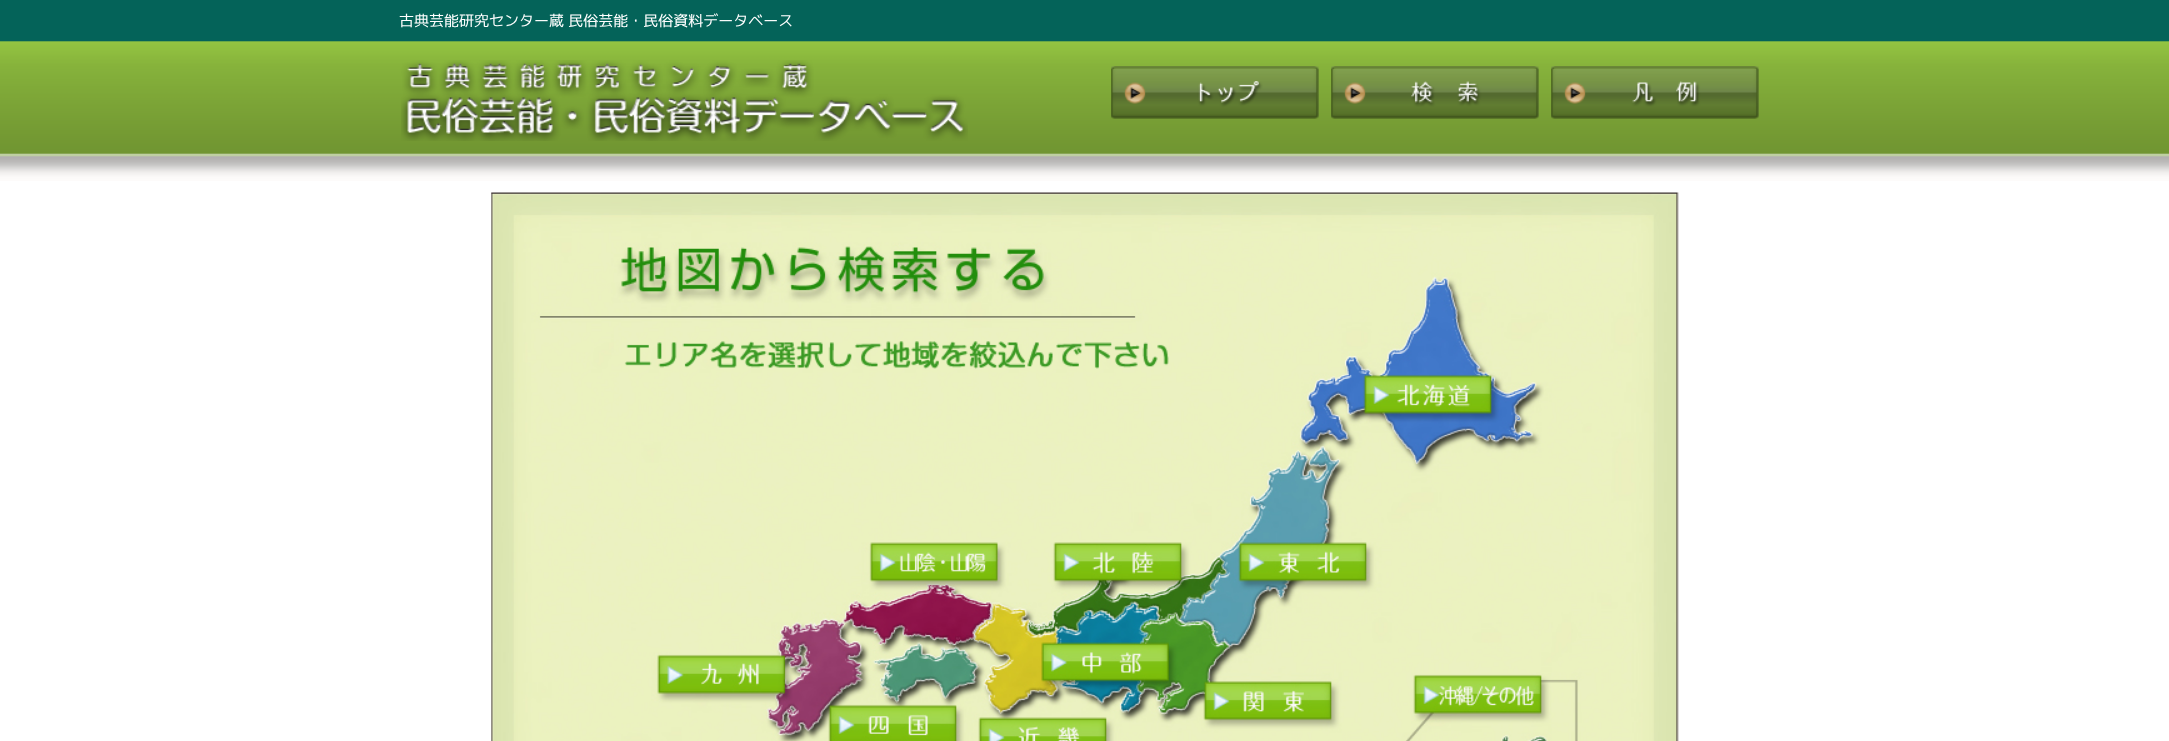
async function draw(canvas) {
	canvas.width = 2169;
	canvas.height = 741;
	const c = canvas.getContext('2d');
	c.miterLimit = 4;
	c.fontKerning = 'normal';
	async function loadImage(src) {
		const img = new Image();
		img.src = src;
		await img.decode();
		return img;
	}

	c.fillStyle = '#fff';
	c.fillRect(0, 0, 2169, 741);
	c.drawImage(await loadImage('img1.png'), 0, 0, 2169, 181);
	c.font = '15px "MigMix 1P"';
	c.fillText('古典芸能研究センター蔵 民俗芸能・民俗資料データベース', 399, 26);
	c.drawImage(await loadImage('img2.png'), 401, 60, 567, 81);
	c.drawImage(await loadImage('img3.png'), 1111, 66, 208, 53);
	c.drawImage(await loadImage('img4.png'), 1331, 66, 208, 53);
	c.drawImage(await loadImage('img5.png'), 1551, 66, 208, 53);
	c.drawImage(await loadImage('img6.png'), 491, 192, 1188, 549);
}

draw(document.querySelector('canvas'));
